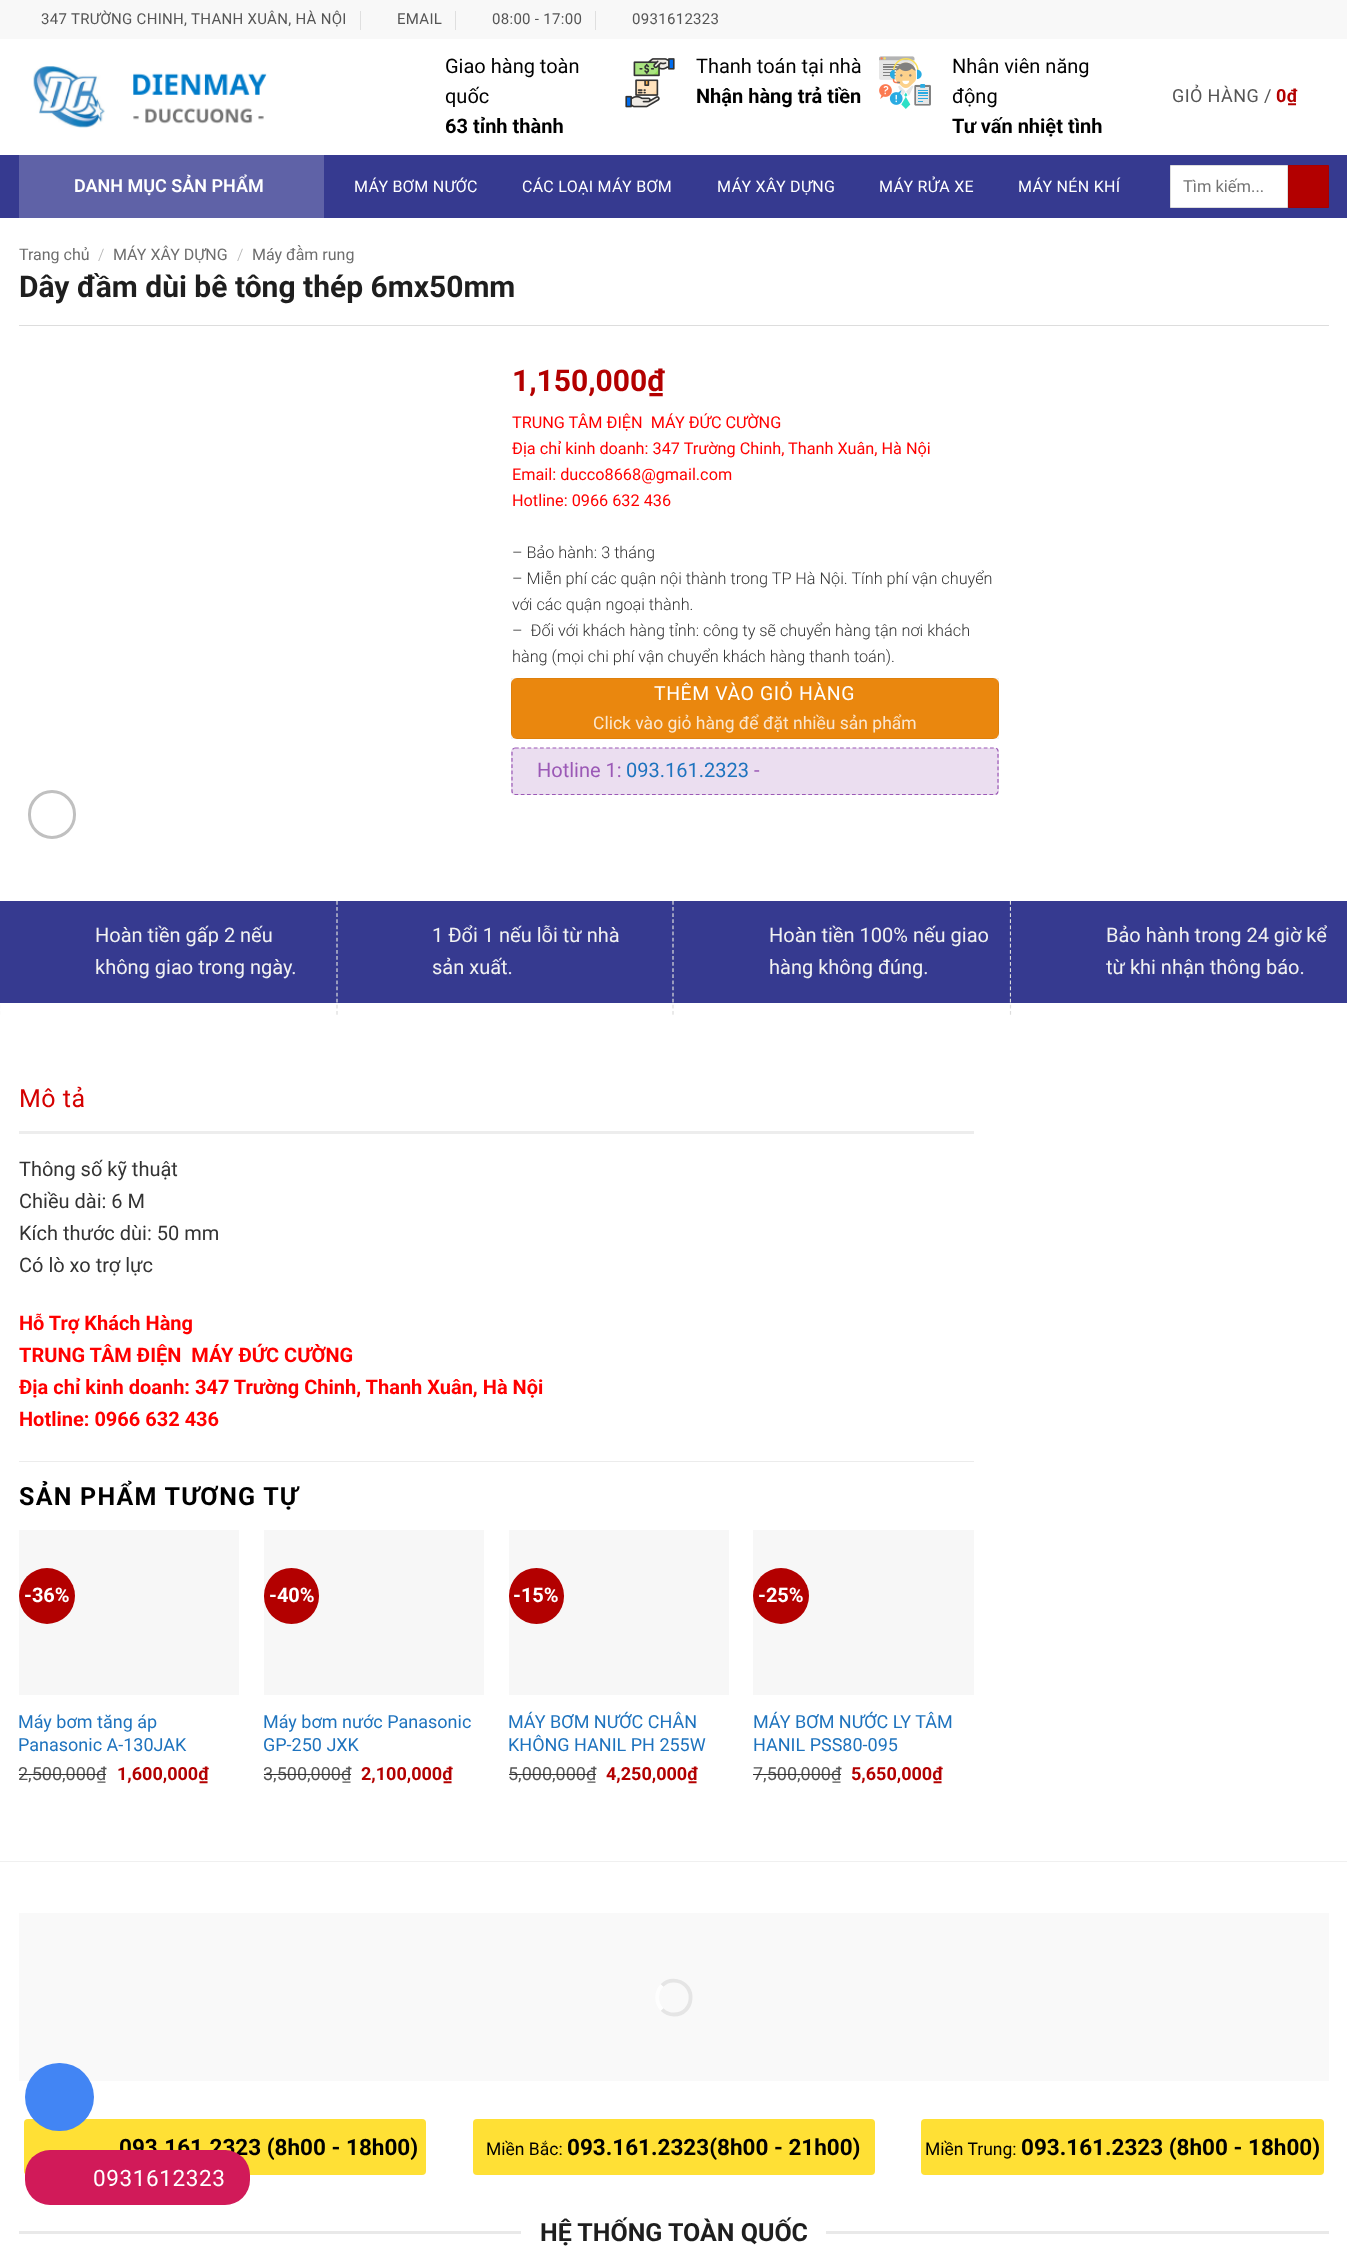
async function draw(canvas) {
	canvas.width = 1347;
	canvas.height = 2250;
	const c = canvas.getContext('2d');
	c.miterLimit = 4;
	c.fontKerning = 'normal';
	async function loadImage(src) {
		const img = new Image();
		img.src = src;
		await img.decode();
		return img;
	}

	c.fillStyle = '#fff';
	c.fillRect(0, 0, 1347, 2250);
	c.fillStyle = '#f8f8f8';
	c.fillRect(0, 0, 1347, 39);
	c.letterSpacing = '0.3px';
	c.font = '15px Roboto';
	c.fillStyle = '#555';
	c.fillText('347 TRƯỜNG CHINH, THANH XUÂN, HÀ NỘI', 41, 24);
	c.fillStyle = '#dfdfdf';
	c.fillRect(360, 11, 1, 19);
	c.fillStyle = '#555';
	c.fillText('EMAIL', 397, 24);
	c.fillStyle = '#dfdfdf';
	c.fillRect(455, 11, 1, 19);
	c.fillStyle = '#555';
	c.fillText('08:00 - 17:00', 492, 24);
	c.fillStyle = '#dfdfdf';
	c.fillRect(595, 11, 1, 19);
	c.fillStyle = '#555';
	c.fillText('0931612323', 632, 24);
	c.drawImage(await loadImage('img1.png'), 33, 66, 234, 62);
	c.letterSpacing = '0px';
	c.font = '20px Roboto';
	c.fillStyle = '#000';
	c.fillText('Giao hàng toàn', 445, 73);
	c.fillText('quốc', 445, 103);
	c.font = 'bold 20px Roboto';
	c.fillText('63 tỉnh thành', 445, 133);
	c.drawImage(await loadImage('img2.png'), 625, 58, 50, 50);
	c.font = '20px Roboto';
	c.fillText('Thanh toán tại nhà', 696, 73);
	c.font = 'bold 20px Roboto';
	c.fillText('Nhận hàng trả tiền', 696, 103);
	c.drawImage(await loadImage('img3.png'), 879, 56, 52, 53);
	c.font = '20px Roboto';
	c.fillText('Nhân viên năng', 952, 73);
	c.fillText('động', 952, 103);
	c.font = 'bold 20px Roboto';
	c.fillText('Tư vấn nhiệt tình', 952, 133);
	c.letterSpacing = '0.4px';
	c.font = '18px Roboto';
	c.fillStyle = '#555';
	c.fillText('GIỎ HÀNG /', 1172, 102);
	c.font = 'bold 18px Roboto';
	c.fillStyle = '#b30000';
	c.fillText('0₫', 1276, 102);
	c.fillStyle = '#363a90';
	c.fillRect(0, 155, 1347, 63);
	c.fillStyle = '#5f62a7';
	c.fillRect(19, 155, 305, 63);
	c.letterSpacing = '0px';
	c.font = '600 18px Roboto';
	c.fillStyle = '#fff';
	c.fillText('DANH MỤC SẢN PHẨM', 74, 192);
	c.letterSpacing = '0.3px';
	c.font = '16px Roboto';
	for (const [text, x, y] of [
		['MÁY BƠM NƯỚC', 354, 192],
		['CÁC LOẠI MÁY BƠM', 522, 192],
		['MÁY XÂY DỰNG', 717, 192],
		['MÁY RỬA XE', 879, 192],
		['MÁY NÉN KHÍ', 1018, 192],
	]) {
		c.fillText(text, x, y);
	}
	c.beginPath();
	c.rect(1170.5, 165.5, 117, 42);
	c.fill();
	c.strokeStyle = '#ddd';
	c.stroke();
	c.letterSpacing = '0px';
	c.font = '16.5px Roboto';
	c.fillStyle = '#757575';
	c.fillText('Tìm kiếm...', 1183, 192);
	c.fillStyle = '#b30000';
	c.beginPath();
	c.rect(1288.5, 165.5, 40, 42);
	c.fill();
	c.strokeStyle = '#a00';
	c.stroke();
	c.font = '16px Roboto';
	c.fillStyle = '#6e6e6e';
	c.fillText('Trang chủ', 19, 260);
	c.font = '300 16px Roboto';
	c.fillStyle = '#b2b2b2';
	c.fillText('/', 98, 260);
	c.font = '16px Roboto';
	c.fillStyle = '#6e6e6e';
	c.fillText('MÁY XÂY DỰNG', 113, 260);
	c.font = '300 16px Roboto';
	c.fillStyle = '#b2b2b2';
	c.fillText('/', 237, 260);
	c.font = '16px Roboto';
	c.fillStyle = '#6e6e6e';
	c.fillText('Máy đầm rung', 252, 260);
	c.fillStyle = '#ddd';
	c.fillRect(19, 325, 1310, 1);
	c.font = 'bold 30px Roboto';
	c.fillStyle = '#1e1e1e';
	c.fillText('Dây đầm dùi bê tông thép 6mx50mm', 19, 297);
	c.fillStyle = '#b30000';
	c.fillText('1,150,000₫', 512, 391);
	c.font = '16.25px Roboto';
	c.fillStyle = '#f00';
	for (const [text, x, y] of [
		['TRUNG TÂM ĐIỆN  MÁY ĐỨC CƯỜNG', 512, 428],
		['Địa chỉ kinh doanh: 347 Trường Chinh, Thanh Xuân, Hà Nội', 512, 454],
		['Email: ducco8668@gmail.com', 512, 480],
		['Hotline: 0966 632 436', 512, 506],
	]) {
		c.fillText(text, x, y);
	}
	c.font = '300 16.25px Roboto';
	c.fillStyle = '#333';
	for (const [text, x, y] of [
		['– Bảo hành: 3 tháng', 512, 558],
		['– Miễn phí các quận nội thành trong TP Hà Nội. Tính phí vận chuyển', 512, 584],
		['với các quận ngoại thành.', 512, 610],
		['–  Đối với khách hàng tỉnh: công ty sẽ chuyển hàng tận nơi khách', 512, 636],
		['hàng (mọi chi phí vận chuyển khách hàng thanh toán).', 512, 662],
	]) {
		c.fillText(text, x, y);
	}
	c.fillStyle = '#ea870e';
	c.beginPath();
	c.roundRect(511, 678, 488, 61, 6);
	c.fill();
	c.strokeStyle = '#0000000d';
	c.strokeRect(511.5, 678.5, 487, 60);
	c.letterSpacing = '0.6px';
	c.font = '19.4px Roboto';
	c.fillStyle = '#fff';
	c.fillText('THÊM VÀO GIỎ HÀNG', 654, 700);
	c.letterSpacing = '0px';
	c.font = '17.5px Roboto';
	c.fillStyle = '#fbe7cf';
	c.fillText('Click vào giỏ hàng để đặt nhiều sản phẩm', 593, 729);
	c.fillStyle = '#ebdef0';
	c.beginPath();
	c.roundRect(511, 748, 488, 47, 4);
	c.fill();
	c.beginPath();
	c.moveTo(515, 748);
	c.lineTo(995, 748);
	c.bezierCurveTo(996.5, 748, 998, 749.5, 998, 751);
	c.lineTo(998, 791);
	c.bezierCurveTo(998, 793, 996.5, 794.5, 995, 794.5);
	c.lineTo(515, 794.5);
	c.bezierCurveTo(513.5, 794.5, 512, 793, 512, 791);
	c.lineTo(512, 751);
	c.bezierCurveTo(512, 749.5, 513.5, 748, 515, 748);
	c.closePath();
	c.strokeStyle = '#9b59b6';
	c.lineWidth = 1.2;
	c.setLineDash([3.75, 2.5]);
	c.stroke();
	c.font = '20px Roboto';
	c.fillStyle = '#9b59b6';
	c.fillText('Hotline 1:', 537, 777);
	c.fillStyle = '#1e73be';
	c.fillText('093.161.2323', 626, 777);
	c.fillStyle = '#9b59b6';
	c.fillText('-', 754, 777);
	c.beginPath();
	c.roundRect(29.5, 791.5, 45, 46, 22.5);
	c.strokeStyle = '#c0c0c0';
	c.lineWidth = 3;
	c.setLineDash([]);
	c.stroke();
	c.beginPath();
	c.moveTo(-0.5, 901);
	c.lineTo(-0.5, 1015);
	c.strokeStyle = '#ddd';
	c.lineWidth = 1.2;
	c.setLineDash([3.75, 2.36]);
	c.stroke();
	c.fillStyle = '#363a90';
	c.fillRect(0, 901, 1011, 102);
	c.fillStyle = '#f1f1f1';
	c.fillText('Hoàn tiền gấp 2 nếu', 95, 942);
	c.fillText('không giao trong ngày.', 95, 974);
	c.save();
	c.beginPath();
	c.rect(0, 901, 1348, 114);
	c.clip();
	c.beginPath();
	c.moveTo(0, 1015.5);
	c.lineTo(337.5, 1015.5);
	c.setLineDash([3.75, 2.55]);
	c.stroke();
	c.restore();
	c.beginPath();
	c.moveTo(337, 901);
	c.lineTo(337, 1015);
	c.stroke();
	c.fillText('1 Đổi 1 nếu lỗi từ nhà', 432, 942);
	c.fillText('sản xuất.', 432, 974);
	c.save();
	c.beginPath();
	c.rect(0, 901, 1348, 114);
	c.clip();
	c.beginPath();
	c.moveTo(337.5, 1015.5);
	c.lineTo(674, 1015.5);
	c.setLineDash([3.75, 2.52]);
	c.stroke();
	c.restore();
	c.beginPath();
	c.moveTo(673, 901);
	c.lineTo(673, 1015);
	c.stroke();
	c.fillText('Hoàn tiền 100% nếu giao', 769, 942);
	c.fillText('hàng không đúng.', 769, 974);
	c.save();
	c.beginPath();
	c.rect(0, 901, 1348, 114);
	c.clip();
	c.beginPath();
	c.moveTo(674, 1015.5);
	c.lineTo(1011, 1015.5);
	c.setLineDash([3.75, 2.55]);
	c.stroke();
	c.restore();
	c.beginPath();
	c.moveTo(1010.5, 901);
	c.lineTo(1010.5, 1015);
	c.stroke();
	c.fillStyle = '#363a90';
	c.fillRect(1011, 901, 336, 102);
	c.fillStyle = '#f1f1f1';
	c.fillText('Bảo hành trong 24 giờ kể', 1106, 942);
	c.fillText('từ khi nhận thông báo.', 1106, 974);
	c.save();
	c.beginPath();
	c.rect(0, 901, 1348, 114);
	c.clip();
	c.beginPath();
	c.moveTo(1011, 1015.5);
	c.lineTo(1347.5, 1015.5);
	c.setLineDash([3.75, 2.52]);
	c.stroke();
	c.restore();
	c.fillStyle = '#ededed';
	c.fillRect(19, 1131, 955, 3);
	c.letterSpacing = '0.5px';
	c.font = '25px Roboto';
	c.fillStyle = '#d50000';
	c.fillText('Mô tả', 19, 1107);
	c.letterSpacing = '0px';
	c.font = '20px Roboto';
	c.fillStyle = '#333';
	for (const [text, x, y] of [
		['Thông số kỹ thuật', 19, 1176],
		['Chiều dài: 6 M', 19, 1208],
		['Kích thước dùi: 50 mm', 19, 1240],
		['Có lò xo trợ lực', 19, 1272],
	]) {
		c.fillText(text, x, y);
	}
	c.font = 'bold 20px Roboto';
	c.fillStyle = '#f00';
	for (const [text, x, y] of [
		['Hỗ Trợ Khách Hàng', 19, 1330],
		['TRUNG TÂM ĐIỆN  MÁY ĐỨC CƯỜNG', 19, 1362],
		['Địa chỉ kinh doanh: 347 Trường Chinh, Thanh Xuân, Hà Nội', 19, 1394],
		['Hotline: 0966 632 436', 19, 1426],
	]) {
		c.fillText(text, x, y);
	}
	c.fillStyle = '#ececec';
	c.fillRect(19, 1461, 955, 1);
	c.letterSpacing = '1.25px';
	c.font = 'bold 25px Roboto';
	c.fillStyle = '#000';
	c.fillText('SẢN PHẨM TƯƠNG TỰ', 19, 1505);
	c.fillStyle = '#f7f7f7';
	c.fillRect(19, 1530, 220, 165);
	c.fillStyle = '#b30000';
	c.beginPath();
	c.arc(47, 1596, 28, 0, 2 * Math.PI);
	c.fill();
	c.letterSpacing = '0px';
	c.font = 'bold 20px Roboto';
	c.fillStyle = '#fff';
	c.fillText('-36%', 24, 1602);
	c.font = '18px Roboto';
	c.fillStyle = '#1e73be';
	c.fillText('Máy bơm tăng áp', 18, 1728);
	c.fillText('Panasonic A-130JAK', 18, 1751);
	c.fillStyle = '#555';
	c.fillText('2,500,000₫', 18, 1780);
	c.fillStyle = '#333';
	c.fillRect(19, 1774, 87, 1);
	c.font = 'bold 18px Roboto';
	c.fillStyle = '#b30000';
	c.fillText('1,600,000₫', 117, 1780);
	c.fillStyle = '#f7f7f7';
	c.fillRect(264, 1530, 220, 165);
	c.fillStyle = '#b30000';
	c.beginPath();
	c.roundRect(264, 1568, 55, 56, 27.5);
	c.fill();
	c.font = 'bold 20px Roboto';
	c.fillStyle = '#fff';
	c.fillText('-40%', 269, 1602);
	c.font = '18px Roboto';
	c.fillStyle = '#1e73be';
	c.fillText('Máy bơm nước Panasonic', 263, 1728);
	c.fillText('GP-250 JXK', 263, 1751);
	c.fillStyle = '#555';
	c.fillText('3,500,000₫', 263, 1780);
	c.fillStyle = '#333';
	c.fillRect(264, 1774, 87, 1);
	c.font = 'bold 18px Roboto';
	c.fillStyle = '#b30000';
	c.fillText('2,100,000₫', 361, 1780);
	c.fillStyle = '#f7f7f7';
	c.fillRect(509, 1530, 220, 165);
	c.fillStyle = '#b30000';
	c.beginPath();
	c.roundRect(509, 1568, 55, 56, 27.5);
	c.fill();
	c.font = 'bold 20px Roboto';
	c.fillStyle = '#fff';
	c.fillText('-15%', 513, 1602);
	c.font = '18px Roboto';
	c.fillStyle = '#1e73be';
	c.fillText('MÁY BƠM NƯỚC CHÂN', 508, 1728);
	c.fillText('KHÔNG HANIL PH 255W', 508, 1751);
	c.fillStyle = '#555';
	c.fillText('5,000,000₫', 508, 1780);
	c.fillStyle = '#333';
	c.fillRect(509, 1774, 87, 1);
	c.font = 'bold 18px Roboto';
	c.fillStyle = '#b30000';
	c.fillText('4,250,000₫', 606, 1780);
	c.fillStyle = '#f7f7f7';
	c.fillRect(753, 1530, 221, 165);
	c.fillStyle = '#b30000';
	c.beginPath();
	c.arc(781, 1596, 28, 0, 2 * Math.PI);
	c.fill();
	c.font = 'bold 20px Roboto';
	c.fillStyle = '#fff';
	c.fillText('-25%', 758, 1602);
	c.font = '18px Roboto';
	c.fillStyle = '#1e73be';
	c.fillText('MÁY BƠM NƯỚC LY TÂM', 753, 1728);
	c.fillText('HANIL PSS80-095', 753, 1751);
	c.fillStyle = '#555';
	c.fillText('7,500,000₫', 753, 1780);
	c.fillStyle = '#333';
	c.fillRect(753, 1774, 88, 1);
	c.font = 'bold 18px Roboto';
	c.fillStyle = '#b30000';
	c.fillText('5,650,000₫', 851, 1780);
	c.fillStyle = '#f0f0f0';
	c.fillRect(0, 1861, 1347, 1);
	c.fillStyle = '#ccc';
	c.filter = 'blur(0.5px)';
	c.beginPath();
	c.rect(19, 1913, 1310, 168);
	c.fill();
	c.filter = 'none';
	c.fillStyle = '#f9f9f9';
	c.fillRect(19, 1913, 1310, 168);
	c.beginPath();
	c.moveTo(662, 1985.5);
	c.bezierCurveTo(666, 1981.5, 671.5, 1980, 677, 1981);
	c.bezierCurveTo(697, 1985, 694, 2014.5, 674, 2014.5);
	c.bezierCurveTo(669.5, 2014.5, 665, 2012.5, 662, 2009.5);
	c.strokeStyle = '#e5e5e5';
	c.lineWidth = 3.8;
	c.setLineDash([]);
	c.stroke();
	c.beginPath();
	c.moveTo(662, 2009.5);
	c.bezierCurveTo(655.5, 2003, 655.5, 1992, 662, 1985.5);
	c.strokeStyle = '#fefefe';
	c.stroke();
	c.fillStyle = '#ffe035';
	c.beginPath();
	c.roundRect(24, 2119, 402, 56, 4);
	c.fill();
	c.font = 'bold 22.5px Roboto';
	c.fillStyle = '#000';
	c.fillText('093.161.2323 (8h00 - 18h00)', 119, 2155);
	c.fillStyle = '#ffe035';
	c.beginPath();
	c.roundRect(473, 2119, 402, 56, 4);
	c.fill();
	c.font = '17.5px Roboto';
	c.fillStyle = '#000';
	c.fillText('Miền Bắc:', 486, 2155);
	c.font = 'bold 22.5px Roboto';
	c.fillText('093.161.2323(8h00 - 21h00)', 567, 2155);
	c.fillStyle = '#ffe035';
	c.beginPath();
	c.roundRect(921, 2119, 403, 56, 4);
	c.fill();
	c.font = '17.5px Roboto';
	c.fillStyle = '#000';
	c.fillText('Miền Trung:', 925, 2155);
	c.font = 'bold 22.5px Roboto';
	c.fillText('093.161.2323 (8h00 - 18h00)', 1021, 2155);
	c.fillStyle = '#e9e9e9';
	c.fillRect(19, 2231, 502, 3);
	c.font = 'bold 25px Roboto';
	c.fillStyle = '#1e1e1e';
	c.fillText('HỆ THỐNG TOÀN QUỐC', 540, 2241);
	c.fillStyle = '#e9e9e9';
	c.fillRect(826, 2231, 503, 3);
	c.fillStyle = '#4285f4';
	c.beginPath();
	c.roundRect(25, 2063, 69, 68, 34);
	c.fill();
	c.fillStyle = '#d11a59';
	c.beginPath();
	c.roundRect(25, 2150, 225, 55, 25);
	c.fill();
	c.letterSpacing = '0.6px';
	c.font = '22.5px Roboto';
	c.fillStyle = '#fff';
	c.fillText('0931612323', 93, 2186);
}

draw(document.querySelector('canvas'));
